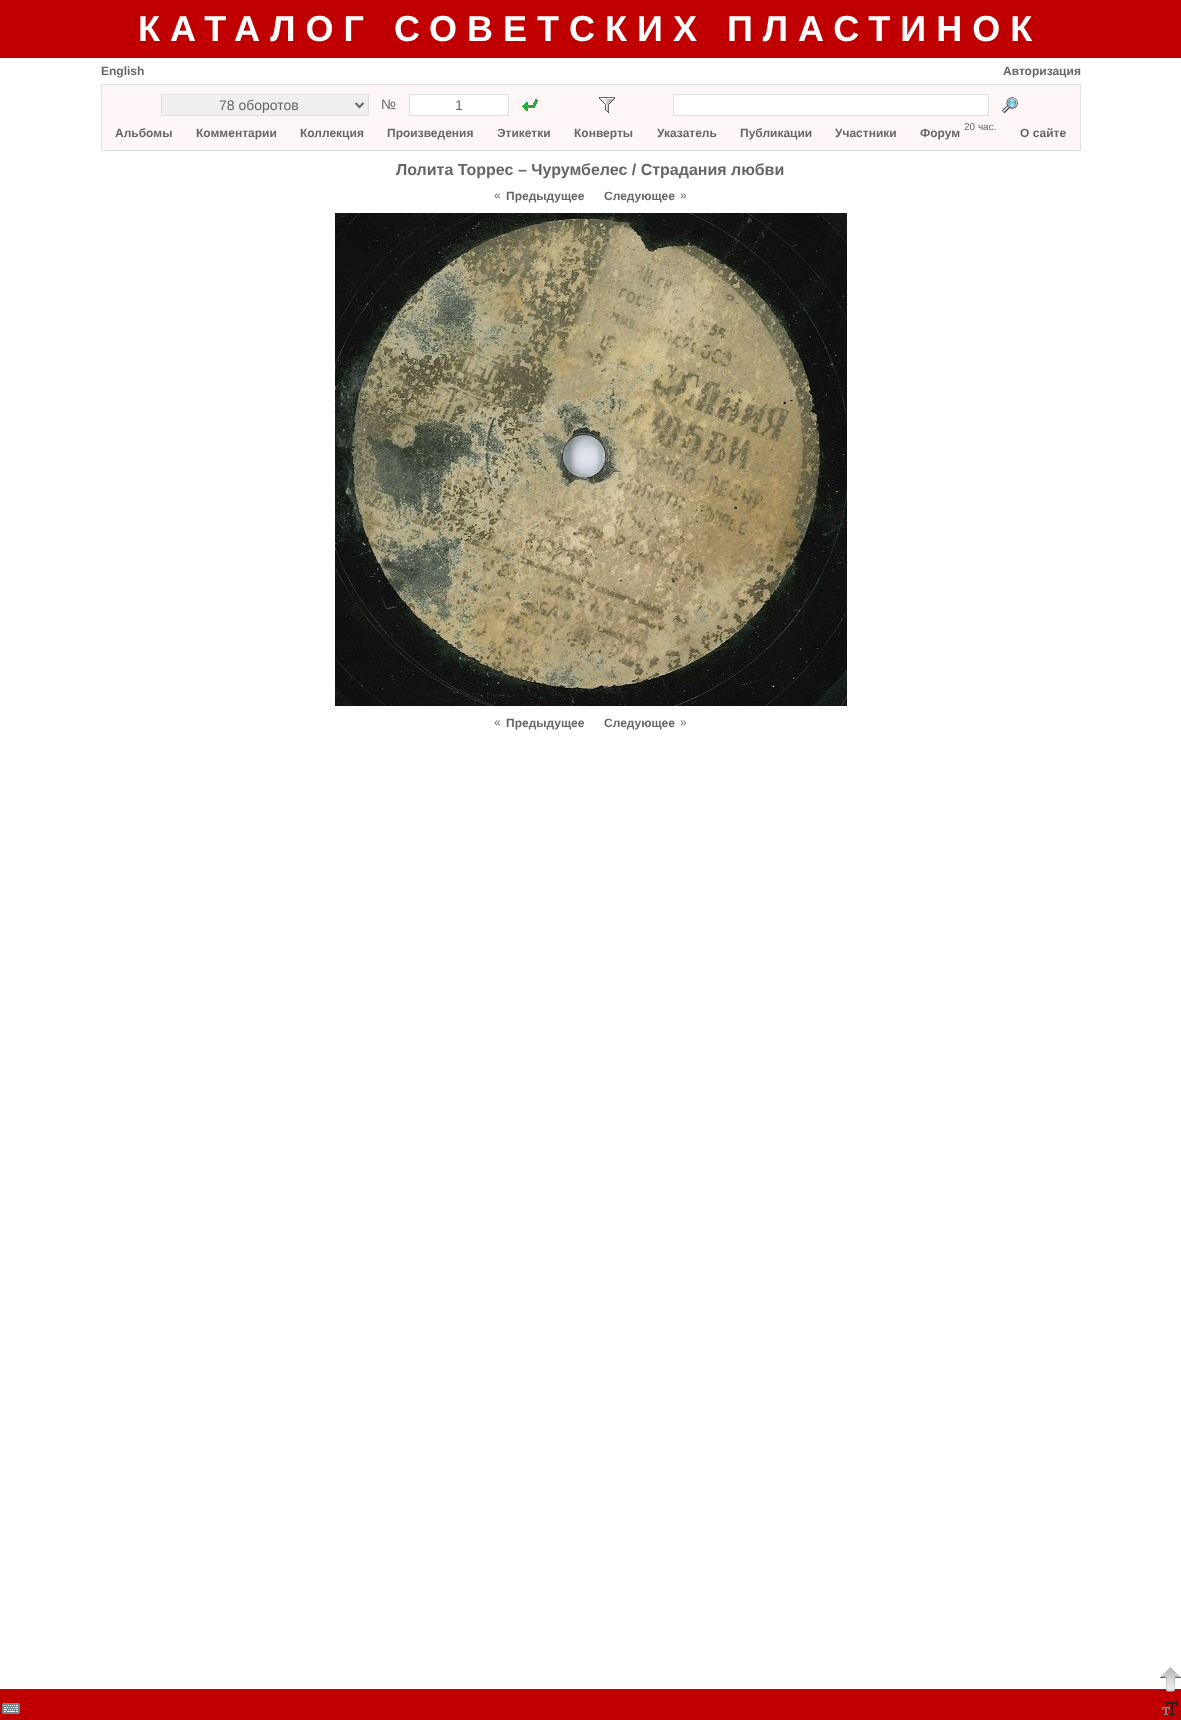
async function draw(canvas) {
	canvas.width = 1181;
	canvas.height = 1720;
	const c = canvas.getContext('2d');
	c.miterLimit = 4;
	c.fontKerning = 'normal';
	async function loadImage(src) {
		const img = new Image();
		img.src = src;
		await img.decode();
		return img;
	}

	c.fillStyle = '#fff';
	c.fillRect(0, 0, 1181, 1720);
	c.fillStyle = '#c00000';
	c.fillRect(0, 0, 1181, 58);
	c.letterSpacing = '10px';
	c.font = 'bold 36px Liberation Sans';
	c.fillStyle = '#fff';
	c.fillText('КАТАЛОГ СОВЕТСКИХ ПЛАСТИНОК', 138, 41);
	c.letterSpacing = '0px';
	c.font = 'bold 12px Liberation Sans';
	c.fillStyle = '#666';
	c.fillText('English', 101, 75);
	c.fillText('Авторизация', 1003, 75);
	c.fillStyle = '#fff7f7';
	c.beginPath();
	c.rect(101.5, 84.5, 979, 66);
	c.fill();
	c.strokeStyle = '#e0e0e0';
	c.stroke();
	c.fillStyle = '#efefef';
	c.beginPath();
	c.rect(161.5, 94.5, 207, 21);
	c.fill();
	c.stroke();
	c.beginPath();
	c.moveTo(355.5, 103);
	c.lineTo(359.5, 107);
	c.lineTo(363.5, 103);
	c.strokeStyle = '#666';
	c.lineWidth = 2;
	c.stroke();
	c.font = '14px Liberation Sans';
	c.fillStyle = '#666';
	c.fillText('78 оборотов', 219, 110);
	c.fillText('№', 381, 109);
	c.fillStyle = '#fff';
	c.beginPath();
	c.rect(409.5, 94.5, 99, 21);
	c.fill();
	c.strokeStyle = '#e0e0e0';
	c.lineWidth = 1;
	c.stroke();
	c.fillStyle = '#666';
	c.fillText('1', 455, 110);
	c.drawImage(await loadImage('img1.png'), 522, 99, 16, 12);
	c.drawImage(await loadImage('img2.png'), 599, 97, 16, 16);
	c.fillStyle = '#fff';
	c.beginPath();
	c.rect(673.5, 94.5, 315, 21);
	c.fill();
	c.stroke();
	c.drawImage(await loadImage('img3.png'), 1002, 97, 16, 16);
	c.font = '10px Liberation Sans';
	c.fillStyle = '#666';
	c.fillText('20 час.', 964, 130);
	c.font = 'bold 12px Liberation Sans';
	for (const [text, x, y] of [
		['Альбомы', 115, 137],
		['Комментарии', 196, 137],
		['Коллекция', 300, 137],
		['Произведения', 387, 137],
		['Этикетки', 497, 137],
		['Конверты', 574, 137],
		['Указатель', 657, 137],
		['Публикации', 740, 137],
		['Участники', 835, 137],
		['Форум', 920, 137],
		['О сайте', 1020, 137],
	]) {
		c.fillText(text, x, y);
	}
	c.font = 'bold 16px Liberation Sans';
	c.fillText('Лолита Торрес – Чурумбелес / Страдания любви', 396, 175);
	c.font = '12px Liberation Sans';
	c.fillText('«', 494, 199);
	c.font = 'bold 12px Liberation Sans';
	c.fillText('Предыдущее', 506, 200);
	c.fillText('Следующее', 604, 200);
	c.font = '12px Liberation Sans';
	c.fillText('»', 680, 199);
	c.drawImage(await loadImage('img4.png'), 335, 213, 512, 493);
	c.fillText('«', 494, 726);
	c.font = 'bold 12px Liberation Sans';
	c.fillText('Предыдущее', 506, 727);
	c.fillText('Следующее', 604, 727);
	c.font = '12px Liberation Sans';
	c.fillText('»', 680, 726);
	c.fillStyle = '#c00000';
	c.fillRect(0, 1689, 1181, 31);
	c.drawImage(await loadImage('img5.png'), 1159, 1667, 22, 25);
	c.drawImage(await loadImage('img6.png'), 2, 1703, 18, 11);
	c.drawImage(await loadImage('img7.png'), 1162, 1702, 16, 13);
}

draw(document.querySelector('canvas'));
